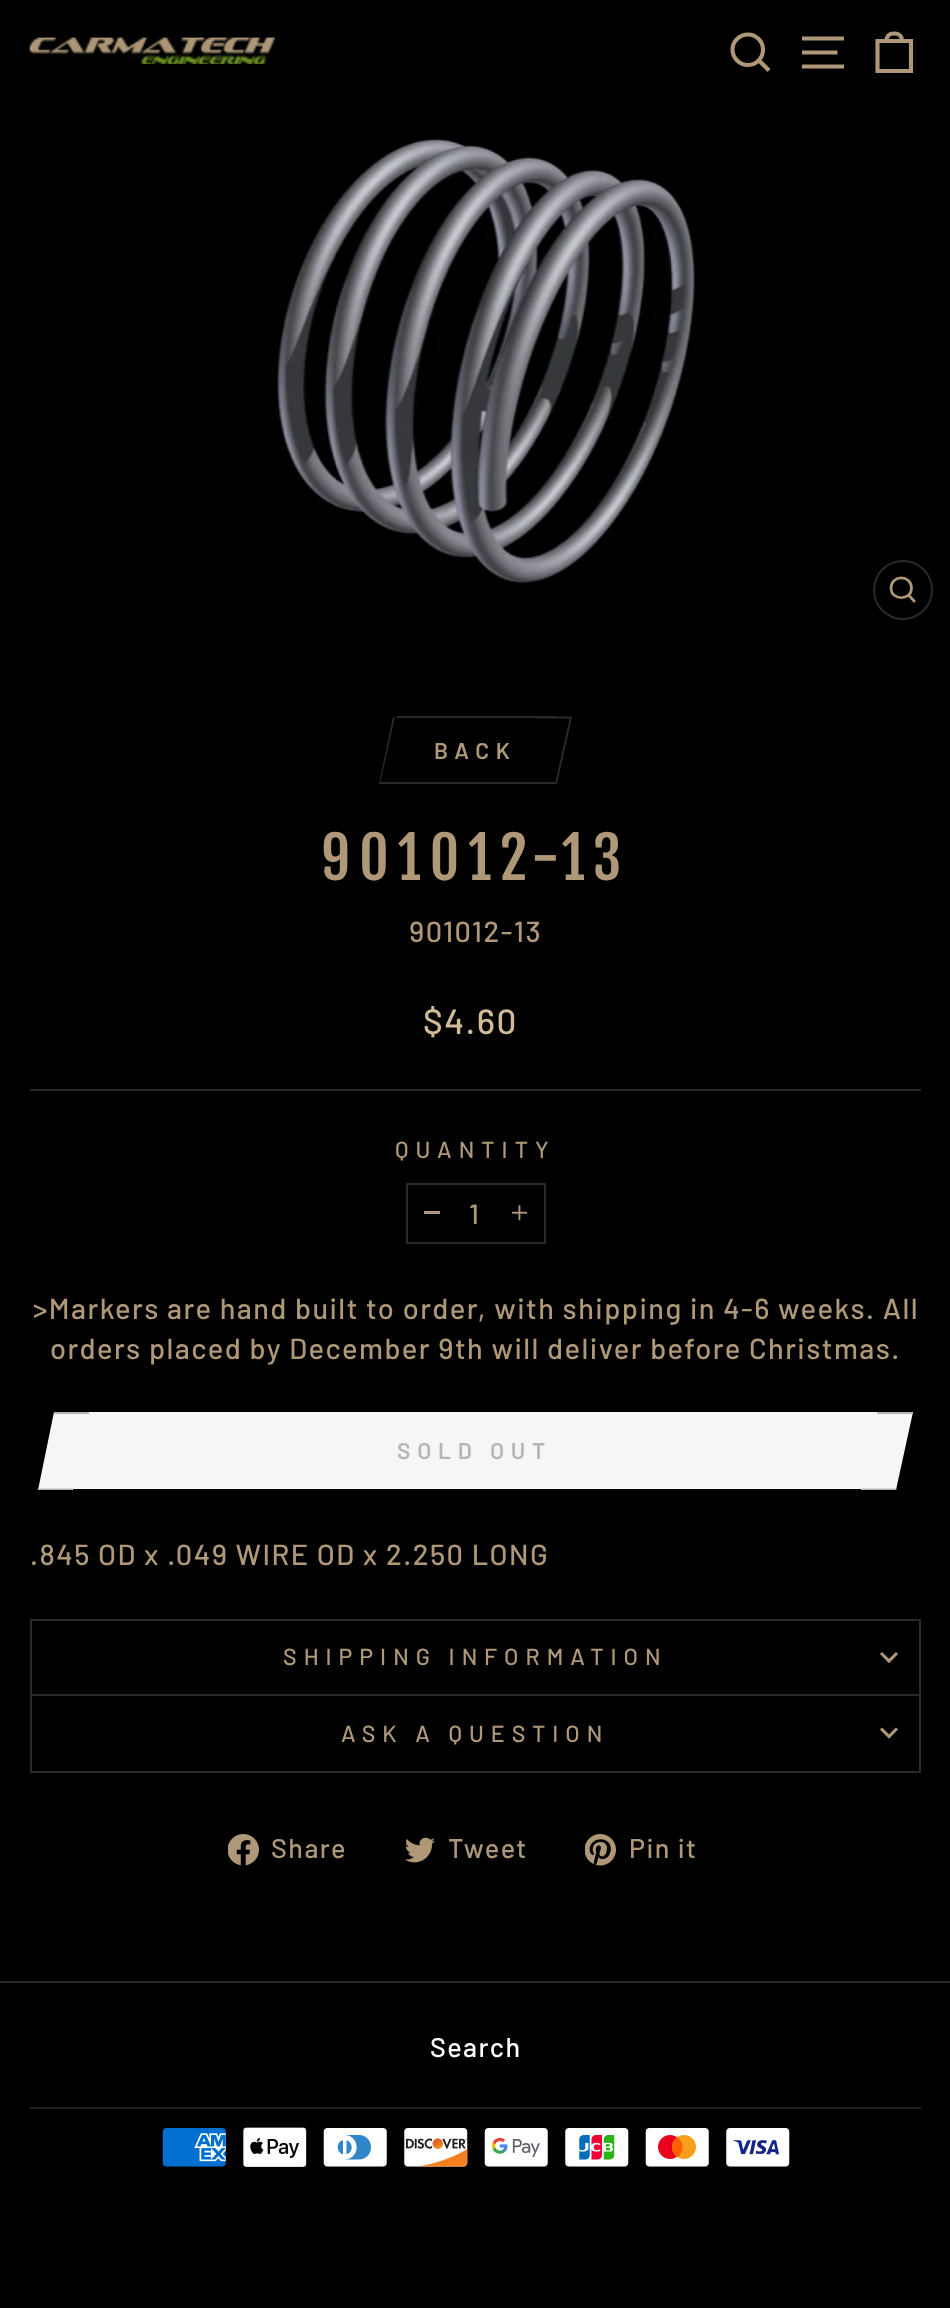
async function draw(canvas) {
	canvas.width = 950;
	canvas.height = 2308;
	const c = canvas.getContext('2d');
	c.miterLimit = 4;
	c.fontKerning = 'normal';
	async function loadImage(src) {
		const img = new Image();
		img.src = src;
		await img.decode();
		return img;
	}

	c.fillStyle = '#000';
	c.fillRect(0, 0, 950, 2308);
	c.drawImage(await loadImage('img1.png'), 29, 37, 246, 27);
	c.beginPath();
	c.moveTo(763, 49.5);
	c.bezierCurveTo(763, 58, 756.5, 65, 748, 65);
	c.bezierCurveTo(739.5, 65, 732.5, 58, 732.5, 49.5);
	c.bezierCurveTo(732.5, 41.5, 739.5, 34.5, 748, 34.5);
	c.bezierCurveTo(756.5, 34.5, 763, 41.5, 763, 49.5);
	c.closePath();
	c.moveTo(769, 70.5);
	c.lineTo(759, 60.5);
	c.strokeStyle = '#ae9878';
	c.lineWidth = 4.1;
	c.stroke();
	c.beginPath();
	c.moveTo(802, 38.5);
	c.lineTo(844, 38.5);
	c.moveTo(802, 52.5);
	c.lineTo(837.5, 52.5);
	c.moveTo(802, 66.5);
	c.lineTo(844, 66.5);
	c.stroke();
	c.beginPath();
	c.moveTo(877.5, 41);
	c.lineTo(911, 41);
	c.lineTo(911, 71);
	c.lineTo(877.5, 71);
	c.closePath();
	c.moveTo(886.5, 41);
	c.bezierCurveTo(886.5, 35, 890, 33.5, 894, 33.5);
	c.bezierCurveTo(898.5, 33.5, 902, 35, 902, 41);
	c.stroke();
	c.drawImage(await loadImage('img2.png'), 276, 138, 419, 446);
	c.beginPath();
	c.arc(903, 590, 29, 0, 2 * Math.PI);
	c.strokeStyle = '#2b2a27';
	c.lineWidth = 2;
	c.stroke();
	c.beginPath();
	c.moveTo(911.5, 588);
	c.bezierCurveTo(911.5, 601, 891, 601, 891, 588);
	c.bezierCurveTo(891, 574.5, 911.5, 574.5, 911.5, 588);
	c.closePath();
	c.moveTo(915, 602);
	c.lineTo(908.5, 595);
	c.strokeStyle = '#ae9878';
	c.lineWidth = 2.7;
	c.stroke();
	c.fillStyle = '#2b2a27';
	c.fillRect(397, 716, 158, 2);
	c.fillRect(413, 782, 142, 2);
	c.beginPath();
	c.moveTo(379, 782);
	c.lineTo(414, 782);
	c.lineTo(413.5, 784);
	c.lineTo(378.5, 784);
	c.closePath();
	c.fill();
	c.beginPath();
	c.moveTo(393, 717);
	c.lineTo(395, 717);
	c.lineTo(380, 784);
	c.lineTo(379, 784);
	c.closePath();
	c.fill();
	c.letterSpacing = '6.75px';
	c.font = '600 22.75px Barlow';
	c.fillStyle = '#ae9878';
	c.fillText('BACK', 434, 759);
	c.fillStyle = '#2b2a27';
	c.beginPath();
	c.moveTo(536.5, 716.5);
	c.lineTo(571.5, 716.5);
	c.lineTo(571, 718.5);
	c.lineTo(536, 718.5);
	c.closePath();
	c.fill();
	c.beginPath();
	c.moveTo(570, 717);
	c.lineTo(572, 717);
	c.lineTo(557, 784);
	c.lineTo(555, 784);
	c.closePath();
	c.fill();
	c.letterSpacing = '8.6px';
	c.font = '57.5px Fjalla One';
	c.fillStyle = '#ae9878';
	c.fillText('901012-13', 321, 880);
	c.letterSpacing = '1.45px';
	c.font = '500 29px Barlow';
	c.fillText('901012-13', 409, 942);
	c.font = '500 35px Barlow';
	c.fillStyle = '#d1ba98';
	c.fillText('$4.60', 423, 1034);
	c.fillStyle = '#2b2a27';
	c.fillRect(30, 1089, 891, 2);
	c.letterSpacing = '7px';
	c.font = '500 23.2px Barlow';
	c.fillStyle = '#ae9878';
	c.fillText('QUANTITY', 395, 1158);
	c.strokeStyle = '#2b2a27';
	c.lineWidth = 2;
	c.strokeRect(407, 1184, 138, 59);
	c.fillRect(424, 1211, 16, 3);
	c.letterSpacing = '1px';
	c.font = '500 28px Barlow';
	c.fillText('1', 469, 1224);
	c.drawImage(await loadImage('img3.png'), 511, 1205, 17, 16);
	c.letterSpacing = '1.45px';
	c.font = '500 29px Barlow';
	c.fillText('>Markers are hand built to order, with shipping in 4-6 weeks. All', 33, 1319);
	c.fillText('orders placed by December 9th will deliver before Christmas.', 50, 1359);
	c.fillStyle = '#f6f6f6';
	c.fillRect(73, 1412, 805, 77);
	c.beginPath();
	c.moveTo(54, 1412);
	c.lineTo(89, 1412);
	c.lineTo(73, 1490);
	c.lineTo(38, 1490);
	c.closePath();
	c.fill();
	c.fillStyle = '#b6b6b6';
	c.fillRect(54, 1412, 35, 2);
	c.beginPath();
	c.moveTo(38, 1488.5);
	c.lineTo(73, 1488.5);
	c.lineTo(72.5, 1490);
	c.lineTo(37.5, 1490);
	c.closePath();
	c.fill();
	c.letterSpacing = '6.75px';
	c.font = '600 22.75px Barlow';
	c.fillText('SOLD OUT', 397, 1459);
	c.fillStyle = '#f6f6f6';
	c.beginPath();
	c.moveTo(878, 1412);
	c.lineTo(913, 1412);
	c.lineTo(896, 1490);
	c.lineTo(861, 1490);
	c.closePath();
	c.fill();
	c.fillStyle = '#b6b6b6';
	c.beginPath();
	c.moveTo(877.5, 1412);
	c.lineTo(912.5, 1412);
	c.lineTo(912, 1414);
	c.lineTo(877, 1414);
	c.closePath();
	c.fill();
	c.beginPath();
	c.moveTo(861.5, 1488.5);
	c.lineTo(896.5, 1488.5);
	c.lineTo(896, 1490);
	c.lineTo(861, 1490);
	c.closePath();
	c.fill();
	c.letterSpacing = '1.45px';
	c.font = '500 29px Barlow';
	c.fillStyle = '#ae9878';
	c.fillText('.845 OD x .049 WIRE OD x 2.250 LONG', 30, 1565);
	for (const [x, y, w, h, color] of [
		[30, 1694, 891, 2, '#2b2a27'],
		[30, 1619, 891, 2, '#2b2a27'],
		[919, 1619, 2, 75, '#2b2a27'],
		[30, 1619, 2, 75, '#2b2a27'],
	]) {
		c.fillStyle = color;
		c.fillRect(x, y, w, h);
	}
	c.letterSpacing = '7px';
	c.font = '500 23.2px Barlow';
	c.fillStyle = '#ae9878';
	c.fillText('SHIPPING INFORMATION', 283, 1665);
	c.beginPath();
	c.moveTo(881, 1653);
	c.lineTo(889, 1661);
	c.lineTo(897, 1653);
	c.strokeStyle = '#ae9878';
	c.lineWidth = 3.1;
	c.stroke();
	for (const [x, y, w, h, color] of [
		[30, 1771, 891, 2, '#2b2a27'],
		[919, 1696, 2, 75, '#2b2a27'],
		[30, 1696, 2, 75, '#2b2a27'],
	]) {
		c.fillStyle = color;
		c.fillRect(x, y, w, h);
	}
	c.fillStyle = '#ae9878';
	c.fillText('ASK A QUESTION', 341, 1742);
	c.beginPath();
	c.moveTo(881, 1728.5);
	c.lineTo(889, 1736.5);
	c.lineTo(897, 1728.5);
	c.stroke();
	c.drawImage(await loadImage('img4.png'), 228, 1834, 31, 32);
	c.letterSpacing = '1.45px';
	c.font = '500 27px Barlow';
	c.fillText('Share', 271, 1858);
	c.drawImage(await loadImage('img5.png'), 405, 1837, 30, 26);
	c.fillText('Tweet', 448, 1858);
	c.drawImage(await loadImage('img6.png'), 585, 1834, 31, 32);
	c.fillText('Pin it', 629, 1858);
	c.fillStyle = '#2b2a27';
	c.fillRect(0, 1981, 950, 2);
	c.fillStyle = '#fff';
	c.fillText('Search', 430, 2057);
	c.fillStyle = '#1f1f1f';
	c.fillRect(30, 2107, 891, 2);
	c.drawImage(await loadImage('img7.png'), 162, 2128, 64, 39);
	c.drawImage(await loadImage('img8.png'), 243, 2127, 64, 40);
	c.drawImage(await loadImage('img9.png'), 323, 2128, 64, 39);
	c.drawImage(await loadImage('img10.png'), 404, 2128, 64, 39);
	c.drawImage(await loadImage('img11.png'), 484, 2128, 64, 39);
	c.drawImage(await loadImage('img12.png'), 565, 2128, 64, 39);
	c.drawImage(await loadImage('img13.png'), 645, 2128, 64, 39);
	c.drawImage(await loadImage('img14.png'), 726, 2128, 64, 39);
}

draw(document.querySelector('canvas'));
